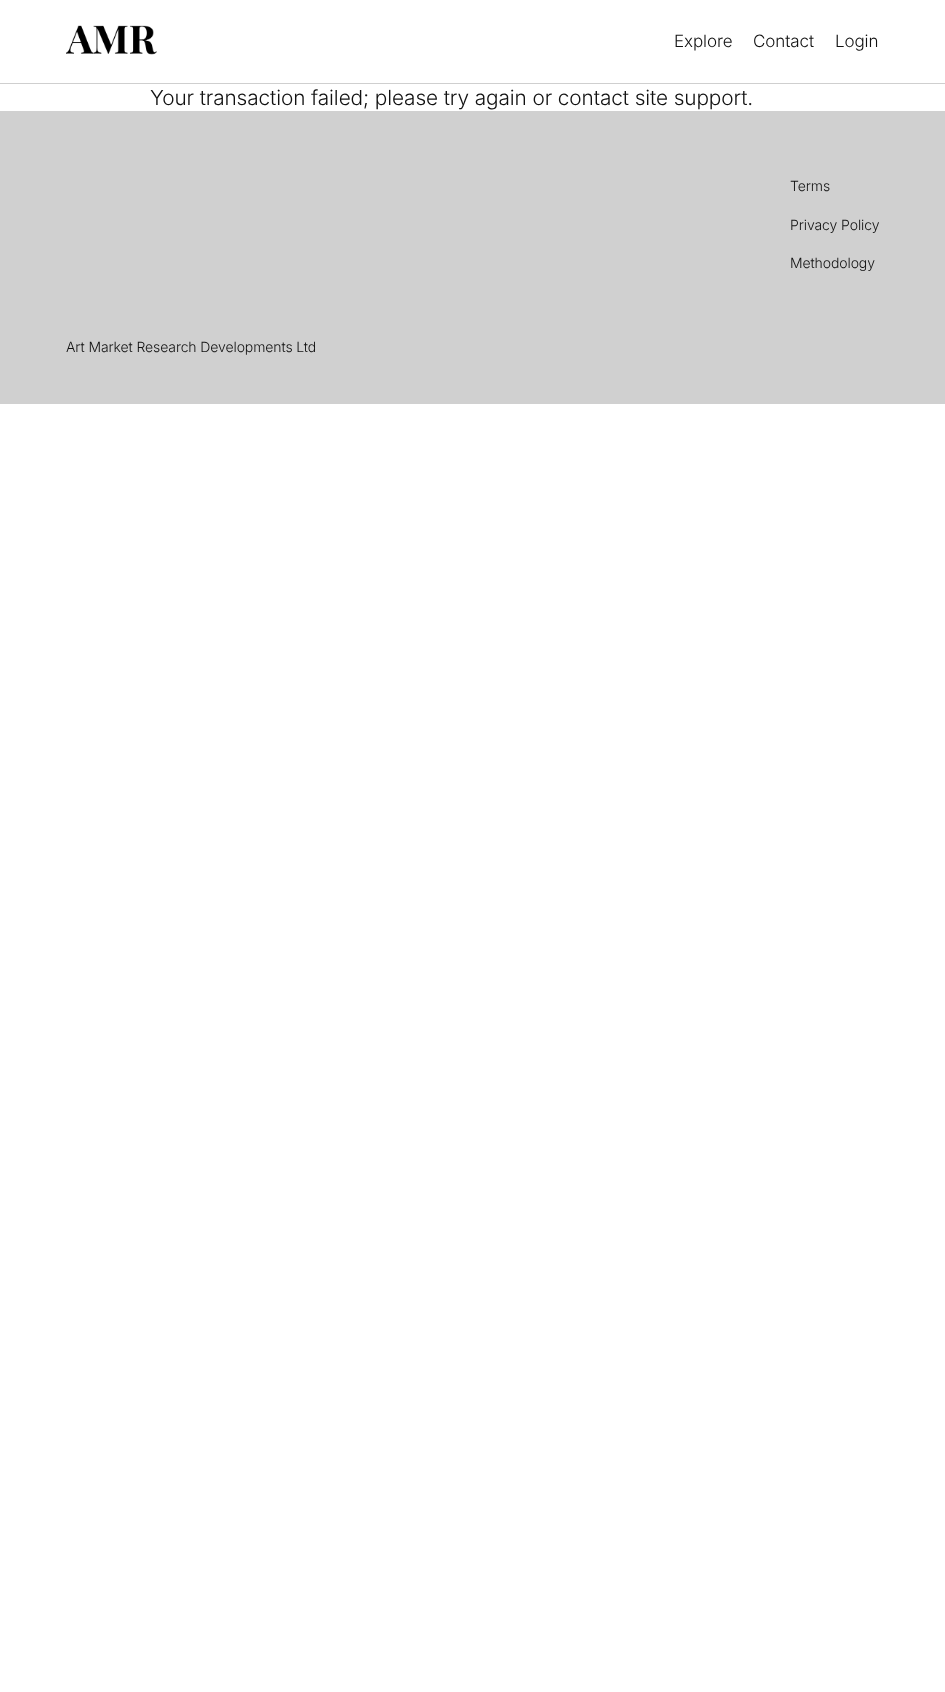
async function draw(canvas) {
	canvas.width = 945;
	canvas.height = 1692;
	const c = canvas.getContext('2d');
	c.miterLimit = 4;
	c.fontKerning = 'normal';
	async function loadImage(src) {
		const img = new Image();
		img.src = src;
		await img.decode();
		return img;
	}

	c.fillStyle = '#fff';
	c.fillRect(0, 0, 945, 1692);
	c.fillStyle = '#cfcfcf';
	c.fillRect(0, 83, 945, 1);
	c.drawImage(await loadImage('img1.png'), 66, 25, 91, 30);
	c.letterSpacing = '-0.1px';
	c.font = '300 17px Inter';
	c.fillStyle = '#111';
	for (const [text, x, y] of [
		['Explore', 674, 47],
		['Contact', 753, 47],
		['Login', 835, 47],
	]) {
		c.fillText(text, x, y);
	}
	c.font = '300 20.8px Inter';
	c.fillText('Your transaction failed; please try again or contact site support.', 150, 105);
	c.fillStyle = '#d0d0d0';
	c.fillRect(0, 111, 945, 293);
	c.font = '300 14px Inter';
	c.fillStyle = '#111';
	for (const [text, x, y] of [
		['Terms', 790, 191],
		['Privacy Policy', 790, 230],
		['Methodology', 790, 268],
		['Art Market Research Developments Ltd', 66, 352],
	]) {
		c.fillText(text, x, y);
	}
}

draw(document.querySelector('canvas'));
